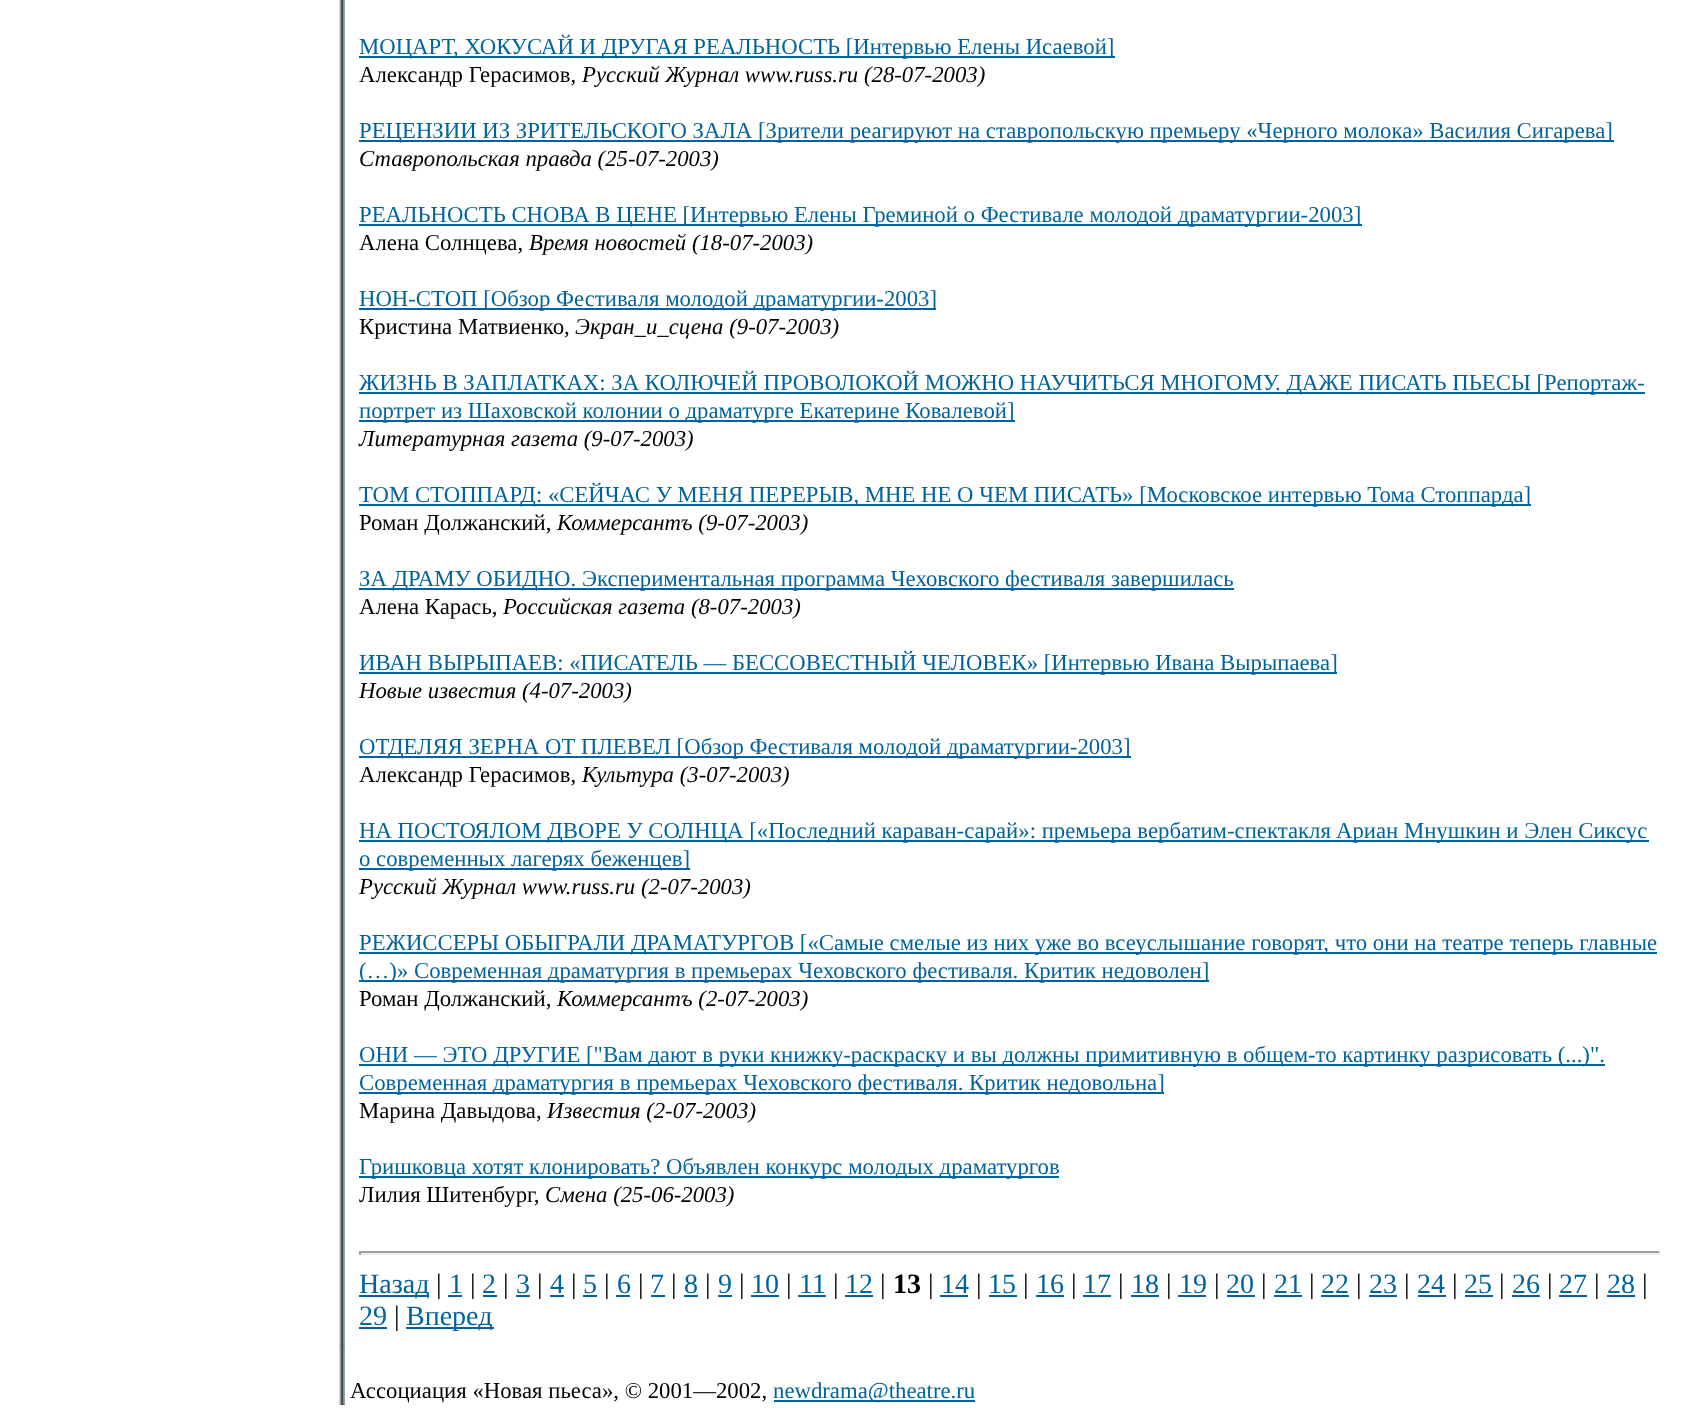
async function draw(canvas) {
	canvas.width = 1688;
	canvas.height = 1419;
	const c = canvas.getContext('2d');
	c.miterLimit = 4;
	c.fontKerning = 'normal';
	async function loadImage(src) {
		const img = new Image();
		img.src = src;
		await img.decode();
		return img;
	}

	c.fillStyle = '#fff';
	c.fillRect(0, 0, 1688, 1419);
	c.fillStyle = '#1e2d34';
	c.fillRect(340, 0, 5, 1405);
	c.drawImage(await loadImage('img1.png'), 339, 0, 6, 1346);
	c.fillStyle = '#00639c';
	c.fillRect(359, 56, 756, 2);
	c.font = '22.75px Liberation Serif';
	c.fillText('МОЦАРТ, ХОКУСАЙ И ДРУГАЯ РЕАЛЬНОСТЬ [Интервью Елены Исаевой]', 359, 54);
	c.fillStyle = '#000';
	c.fillText('Александр Герасимов,', 359, 82);
	c.font = 'italic 22.75px Liberation Serif';
	c.fillText('Русский Журнал www.russ.ru (28-07-2003)', 582, 82);
	c.fillStyle = '#00639c';
	c.fillRect(359, 140, 1255, 2);
	c.font = '22.75px Liberation Serif';
	c.fillText('РЕЦЕНЗИИ ИЗ ЗРИТЕЛЬСКОГО ЗАЛА [Зрители реагируют на ставропольскую премьеру «Черного молока» Василия Сигарева]', 359, 138);
	c.font = 'italic 22.75px Liberation Serif';
	c.fillStyle = '#000';
	c.fillText('Ставропольская правда (25-07-2003)', 359, 166);
	c.fillStyle = '#00639c';
	c.fillRect(359, 224, 1003, 2);
	c.font = '22.75px Liberation Serif';
	c.fillText('РЕАЛЬНОСТЬ СНОВА В ЦЕНЕ [Интервью Елены Греминой о Фестивале молодой драматургии-2003]', 359, 222);
	c.fillStyle = '#000';
	c.fillText('Алена Солнцева,', 359, 250);
	c.font = 'italic 22.75px Liberation Serif';
	c.fillText('Время новостей (18-07-2003)', 529, 250);
	c.fillStyle = '#00639c';
	c.fillRect(359, 308, 577, 2);
	c.font = '22.75px Liberation Serif';
	c.fillText('НОН-СТОП [Обзор Фестиваля молодой драматургии-2003]', 359, 306);
	c.fillStyle = '#000';
	c.fillText('Кристина Матвиенко,', 359, 334);
	c.font = 'italic 22.75px Liberation Serif';
	c.fillText('Экран_и_сцена (9-07-2003)', 575, 334);
	c.fillStyle = '#00639c';
	c.fillRect(359, 392, 1286, 2);
	c.font = '22.75px Liberation Serif';
	c.fillText('ЖИЗНЬ В ЗАПЛАТКАХ: ЗА КОЛЮЧЕЙ ПРОВОЛОКОЙ МОЖНО НАУЧИТЬСЯ МНОГОМУ. ДАЖЕ ПИСАТЬ ПЬЕСЫ [Репортаж-', 359, 390);
	c.fillRect(359, 420, 656, 2);
	c.fillText('портрет из Шаховской колонии о драматурге Екатерине Ковалевой]', 359, 418);
	c.font = 'italic 22.75px Liberation Serif';
	c.fillStyle = '#000';
	c.fillText('Литературная газета (9-07-2003)', 359, 446);
	c.fillStyle = '#00639c';
	c.fillRect(359, 504, 1172, 2);
	c.font = '22.75px Liberation Serif';
	c.fillText('ТОМ СТОППАРД: «СЕЙЧАС У МЕНЯ ПЕРЕРЫВ, МНЕ НЕ О ЧЕМ ПИСАТЬ» [Московское интервью Тома Стоппарда]', 359, 502);
	c.fillStyle = '#000';
	c.fillText('Роман Должанский,', 359, 530);
	c.font = 'italic 22.75px Liberation Serif';
	c.fillText('Коммерсантъ (9-07-2003)', 557, 530);
	c.fillStyle = '#00639c';
	c.fillRect(359, 588, 875, 2);
	c.font = '22.75px Liberation Serif';
	c.fillText('ЗА ДРАМУ ОБИДНО. Экспериментальная программа Чеховского фестиваля завершилась', 359, 586);
	c.fillStyle = '#000';
	c.fillText('Алена Карась,', 359, 614);
	c.font = 'italic 22.75px Liberation Serif';
	c.fillText('Российская газета (8-07-2003)', 503, 614);
	c.fillStyle = '#00639c';
	c.fillRect(359, 672, 978, 2);
	c.font = '22.75px Liberation Serif';
	c.fillText('ИВАН ВЫРЫПАЕВ: «ПИСАТЕЛЬ — БЕССОВЕСТНЫЙ ЧЕЛОВЕК» [Интервью Ивана Вырыпаева]', 359, 670);
	c.font = 'italic 22.75px Liberation Serif';
	c.fillStyle = '#000';
	c.fillText('Новые известия (4-07-2003)', 359, 698);
	c.fillStyle = '#00639c';
	c.fillRect(359, 756, 772, 2);
	c.font = '22.75px Liberation Serif';
	c.fillText('ОТДЕЛЯЯ ЗЕРНА ОТ ПЛЕВЕЛ [Обзор Фестиваля молодой драматургии-2003]', 359, 754);
	c.fillStyle = '#000';
	c.fillText('Александр Герасимов,', 359, 782);
	c.font = 'italic 22.75px Liberation Serif';
	c.fillText('Культура (3-07-2003)', 582, 782);
	c.fillStyle = '#00639c';
	c.fillRect(359, 840, 971, 2);
	c.font = '22.75px Liberation Serif';
	c.fillText('НА ПОСТОЯЛОМ ДВОРЕ У СОЛНЦА [«Последний караван-сарай»: премьера вербатим-спектакля', 359, 838);
	c.fillRect(1330, 840, 319, 2);
	c.fillText('Ариан Мнушкин и Элен Сиксус', 1336, 838);
	c.fillRect(359, 868, 331, 2);
	c.fillText('о современных лагерях беженцев]', 359, 866);
	c.font = 'italic 22.75px Liberation Serif';
	c.fillStyle = '#000';
	c.fillText('Русский Журнал www.russ.ru (2-07-2003)', 359, 894);
	c.fillStyle = '#00639c';
	c.fillRect(359, 952, 1298, 2);
	c.font = '22.75px Liberation Serif';
	c.fillText('РЕЖИССЕРЫ ОБЫГРАЛИ ДРАМАТУРГОВ [«Самые смелые из них уже во всеуслышание говорят, что они на театре теперь главные', 359, 950);
	c.fillRect(359, 980, 850, 2);
	c.fillText('(…)» Современная драматургия в премьерах Чеховского фестиваля. Критик недоволен]', 359, 978);
	c.fillStyle = '#000';
	c.fillText('Роман Должанский,', 359, 1006);
	c.font = 'italic 22.75px Liberation Serif';
	c.fillText('Коммерсантъ (2-07-2003)', 557, 1006);
	c.fillStyle = '#00639c';
	c.fillRect(359, 1064, 1246, 2);
	c.font = '22.75px Liberation Serif';
	c.fillText('ОНИ — ЭТО ДРУГИЕ ["Вам дают в руки книжку-раскраску и вы должны примитивную в общем-то картинку разрисовать (...)".', 359, 1062);
	c.fillRect(359, 1092, 805, 2);
	c.fillText('Современная драматургия в премьерах Чеховского фестиваля. Критик недовольна]', 359, 1090);
	c.fillStyle = '#000';
	c.fillText('Марина Давыдова,', 359, 1118);
	c.font = 'italic 22.75px Liberation Serif';
	c.fillText('Известия (2-07-2003)', 547, 1118);
	c.fillStyle = '#00639c';
	c.fillRect(359, 1176, 700, 2);
	c.font = '22.75px Liberation Serif';
	c.fillText('Гришковца хотят клонировать? Объявлен конкурс молодых драматургов', 359, 1174);
	c.fillStyle = '#000';
	c.fillText('Лилия Шитенбург,', 359, 1202);
	c.font = 'italic 22.75px Liberation Serif';
	c.fillText('Смена (25-06-2003)', 545, 1202);
	for (const [x, y, w, h, color] of [
		[359, 1251, 1302, 2, '#9f9f9f'],
		[1659, 1251, 2, 4, '#eee'],
		[359, 1253, 1302, 2, '#eee'],
		[359, 1251, 2, 4, '#9f9f9f'],
		[359, 1295, 70, 2, '#00639c'],
	]) {
		c.fillStyle = color;
		c.fillRect(x, y, w, h);
	}
	c.font = '28px Liberation Serif';
	c.fillText('Назад', 359, 1293);
	c.fillStyle = '#000';
	c.fillText('|', 436, 1293);
	c.fillStyle = '#00639c';
	c.fillText('1', 449, 1293);
	c.fillRect(448, 1295, 14, 2);
	c.fillStyle = '#000';
	c.fillText('|', 470, 1293);
	c.fillStyle = '#00639c';
	c.fillText('2', 482, 1293);
	c.fillRect(483, 1295, 14, 2);
	c.fillStyle = '#000';
	c.fillText('|', 503, 1293);
	c.fillStyle = '#00639c';
	c.fillText('3', 516, 1293);
	c.fillRect(516, 1295, 14, 2);
	c.fillStyle = '#000';
	c.fillText('|', 537, 1293);
	c.fillStyle = '#00639c';
	c.fillText('4', 550, 1293);
	c.fillRect(550, 1295, 14, 2);
	c.fillStyle = '#000';
	c.fillText('|', 571, 1293);
	c.fillStyle = '#00639c';
	c.fillText('5', 583, 1293);
	c.fillRect(583, 1295, 14, 2);
	c.fillStyle = '#000';
	c.fillText('|', 604, 1293);
	c.fillStyle = '#00639c';
	c.fillText('6', 617, 1293);
	c.fillRect(616, 1295, 14, 2);
	c.fillStyle = '#000';
	c.fillText('|', 638, 1293);
	c.fillStyle = '#00639c';
	c.fillText('7', 650, 1293);
	c.fillRect(651, 1295, 14, 2);
	c.fillStyle = '#000';
	c.fillText('|', 671, 1293);
	c.fillStyle = '#00639c';
	c.fillText('8', 684, 1293);
	c.fillRect(684, 1295, 14, 2);
	c.fillStyle = '#000';
	c.fillText('|', 705, 1293);
	c.fillStyle = '#00639c';
	c.fillText('9', 718, 1293);
	c.fillRect(718, 1295, 14, 2);
	c.fillStyle = '#000';
	c.fillText('|', 739, 1293);
	c.fillStyle = '#00639c';
	c.fillText('10', 751, 1293);
	c.fillRect(751, 1295, 28, 2);
	c.fillStyle = '#000';
	c.fillText('|', 786, 1293);
	c.fillStyle = '#00639c';
	c.fillText('11', 799, 1293);
	c.fillRect(798, 1295, 28, 2);
	c.fillStyle = '#000';
	c.fillText('|', 833, 1293);
	c.fillStyle = '#00639c';
	c.fillText('12', 845, 1293);
	c.fillRect(845, 1295, 28, 2);
	c.fillStyle = '#000';
	c.fillText('|', 880, 1293);
	c.font = 'bold 28px Liberation Serif';
	c.fillText('13', 893, 1293);
	c.font = '28px Liberation Serif';
	c.fillText('|', 928, 1293);
	c.fillStyle = '#00639c';
	c.fillText('14', 941, 1293);
	c.fillRect(940, 1295, 28, 2);
	c.fillStyle = '#000';
	c.fillText('|', 976, 1293);
	c.fillStyle = '#00639c';
	c.fillText('15', 988, 1293);
	c.fillRect(989, 1295, 28, 2);
	c.fillStyle = '#000';
	c.fillText('|', 1023, 1293);
	c.fillStyle = '#00639c';
	c.fillText('16', 1036, 1293);
	c.fillRect(1036, 1295, 28, 2);
	c.fillStyle = '#000';
	c.fillText('|', 1071, 1293);
	c.fillStyle = '#00639c';
	c.fillText('17', 1083, 1293);
	c.fillRect(1083, 1295, 28, 2);
	c.fillStyle = '#000';
	c.fillText('|', 1118, 1293);
	c.fillStyle = '#00639c';
	c.fillText('18', 1131, 1293);
	c.fillRect(1131, 1295, 28, 2);
	c.fillStyle = '#000';
	c.fillText('|', 1166, 1293);
	c.fillStyle = '#00639c';
	c.fillText('19', 1179, 1293);
	c.fillRect(1178, 1295, 28, 2);
	c.fillStyle = '#000';
	c.fillText('|', 1214, 1293);
	c.fillStyle = '#00639c';
	c.fillText('20', 1226, 1293);
	c.fillRect(1227, 1295, 28, 2);
	c.fillStyle = '#000';
	c.fillText('|', 1261, 1293);
	c.fillStyle = '#00639c';
	c.fillText('21', 1274, 1293);
	c.fillRect(1274, 1295, 28, 2);
	c.fillStyle = '#000';
	c.fillText('|', 1309, 1293);
	c.fillStyle = '#00639c';
	c.fillText('22', 1321, 1293);
	c.fillRect(1321, 1295, 28, 2);
	c.fillStyle = '#000';
	c.fillText('|', 1356, 1293);
	c.fillStyle = '#00639c';
	c.fillText('23', 1369, 1293);
	c.fillRect(1369, 1295, 28, 2);
	c.fillStyle = '#000';
	c.fillText('|', 1404, 1293);
	c.fillStyle = '#00639c';
	c.fillText('24', 1417, 1293);
	c.fillRect(1418, 1295, 28, 2);
	c.fillStyle = '#000';
	c.fillText('|', 1452, 1293);
	c.fillStyle = '#00639c';
	c.fillText('25', 1464, 1293);
	c.fillRect(1465, 1295, 28, 2);
	c.fillStyle = '#000';
	c.fillText('|', 1499, 1293);
	c.fillStyle = '#00639c';
	c.fillText('26', 1512, 1293);
	c.fillRect(1512, 1295, 28, 2);
	c.fillStyle = '#000';
	c.fillText('|', 1547, 1293);
	c.fillStyle = '#00639c';
	c.fillText('27', 1559, 1293);
	c.fillRect(1559, 1295, 28, 2);
	c.fillStyle = '#000';
	c.fillText('|', 1594, 1293);
	c.fillStyle = '#00639c';
	c.fillText('28', 1607, 1293);
	c.fillRect(1607, 1295, 28, 2);
	c.fillStyle = '#000';
	c.fillText('|', 1642, 1293);
	c.fillStyle = '#00639c';
	c.fillText('29', 359, 1325);
	c.fillRect(359, 1327, 28, 2);
	c.fillStyle = '#000';
	c.fillText('|', 394, 1325);
	c.fillStyle = '#00639c';
	c.fillRect(406, 1327, 88, 2);
	c.fillText('Вперед', 406, 1325);
	c.drawImage(await loadImage('img2.png'), 339, 1345, 6, 60);
	c.font = '22.75px Liberation Serif';
	c.fillStyle = '#000';
	c.fillText('Ассоциация «Новая пьеса», © 2001—2002,', 350, 1398);
	c.fillStyle = '#00639c';
	c.fillRect(774, 1400, 201, 2);
	c.fillText('newdrama@theatre.ru', 773, 1398);
}

draw(document.querySelector('canvas'));
